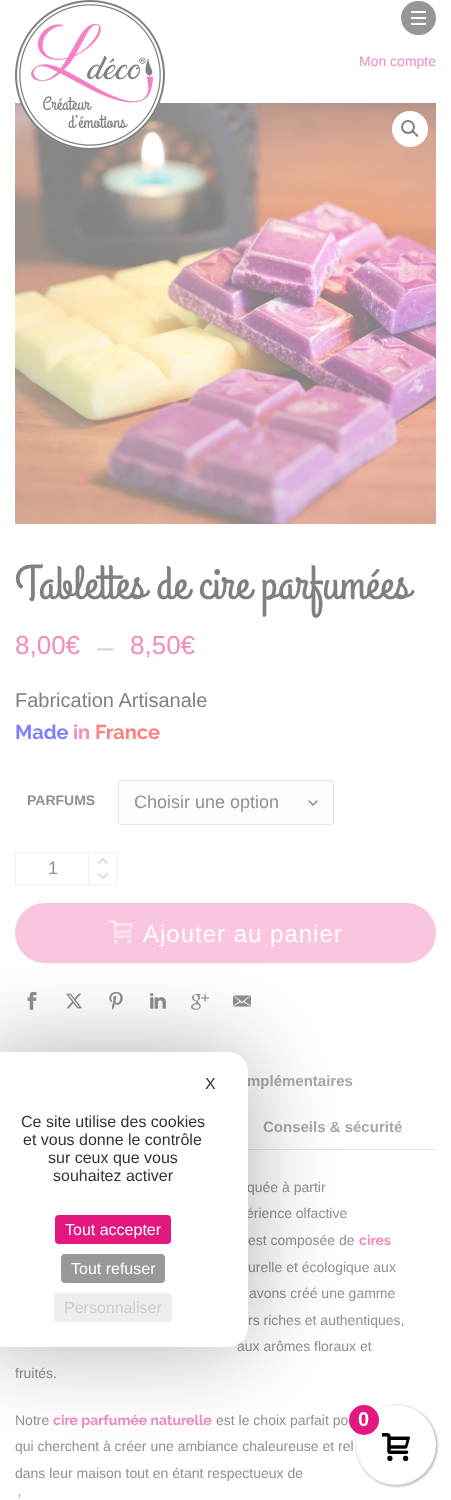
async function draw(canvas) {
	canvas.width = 451;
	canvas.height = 1500;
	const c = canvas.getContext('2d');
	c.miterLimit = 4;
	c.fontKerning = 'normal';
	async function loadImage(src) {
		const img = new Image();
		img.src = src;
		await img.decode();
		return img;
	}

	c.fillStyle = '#fff';
	c.fillRect(0, 0, 451, 1500);
	c.fillStyle = '#fafafa';
	c.fillRect(0, 77, 451, 1);
	c.drawImage(await loadImage('img2.png'), 15, 103, 421, 421);
	c.drawImage(await loadImage('img1.png'), 15, 0, 150, 150);
	c.fillStyle = '#969695';
	c.beginPath();
	c.roundRect(401, 1, 35, 34, 17);
	c.fill();
	for (const [x, y, w, h, color] of [
		[411, 17, 15, 2, '#fff'],
		[411, 11, 15, 2, '#fff'],
		[411, 23, 15, 2, '#fff'],
	]) {
		c.fillStyle = color;
		c.fillRect(x, y, w, h);
	}
	c.font = '14px Liberation Sans';
	c.fillStyle = '#f28bbf';
	c.fillText('Mon compte', 359, 66);
	c.fillStyle = '#fff';
	c.beginPath();
	c.arc(410, 129, 18, 0, 2 * Math.PI);
	c.fill();
	c.beginPath();
	c.arc(408, 127, 6, 0, 2 * Math.PI);
	c.strokeStyle = '#808080';
	c.lineWidth = 2;
	c.stroke();
	c.fillStyle = '#808080';
	c.beginPath();
	c.moveTo(412, 130.5);
	c.bezierCurveTo(413.5, 129.5, 415, 132, 415.5, 133);
	c.bezierCurveTo(416.5, 133.5, 419, 135, 418, 136.5);
	c.bezierCurveTo(416.5, 137.5, 415, 135, 414.5, 134);
	c.bezierCurveTo(413.5, 133.5, 411, 132, 412, 130.5);
	c.closePath();
	c.fill();
	c.font = '48px Grand Hotel';
	c.fillText('Tablettes de cire parfumées', 15, 598);
	c.font = '26px Liberation Sans';
	c.fillStyle = '#f28bbf';
	c.fillText('8,00€', 15, 654);
	c.font = '30px Liberation Sans';
	c.fillStyle = '#d5d5d5';
	c.fillText('–', 97, 657);
	c.font = '26px Liberation Sans';
	c.fillStyle = '#f28bbf';
	c.fillText('8,50€', 130, 654);
	c.font = '20px Liberation Sans';
	c.fillStyle = '#808080';
	c.fillText('Fabrication Artisanale', 15, 707);
	c.font = 'bold 20px Raleway';
	c.fillStyle = '#8080ff';
	c.fillText('Made', 15, 739);
	c.fillStyle = '#f28bbf';
	c.fillText('in', 73, 739);
	c.fillStyle = '#ff8080';
	c.fillText('France', 95, 739);
	c.font = 'bold 14px Liberation Sans';
	c.fillStyle = '#919191';
	c.fillText('PARFUMS', 27, 805);
	c.fillStyle = '#fcfcfc';
	c.beginPath();
	c.roundRect(118, 780, 216, 45, 3);
	c.fill();
	c.beginPath();
	c.moveTo(309, 801);
	c.lineTo(313, 805);
	c.lineTo(317, 801);
	c.lineWidth = 1.3;
	c.lineCap = 'round';
	c.lineJoin = 'round';
	c.stroke();
	c.beginPath();
	c.roundRect(118.5, 780.5, 215, 44, 2.5);
	c.strokeStyle = '#e6e6e6';
	c.lineWidth = 1;
	c.lineJoin = 'miter';
	c.stroke();
	c.font = '18px Liberation Sans';
	c.fillStyle = '#919191';
	c.fillText('Choisir une option', 134, 808);
	c.strokeStyle = '#f1f1f1';
	c.strokeRect(15.5, 852.5, 101, 32);
	c.fillText('1', 48, 874);
	c.fillStyle = '#f1f1f1';
	c.fillRect(88, 853, 1, 31);
	c.drawImage(await loadImage('img3.png'), 98, 858, 10, 6);
	c.drawImage(await loadImage('img4.png'), 98, 873, 10, 6);
	c.fillStyle = '#f9c5df';
	c.beginPath();
	c.roundRect(15, 903, 421, 60, 30);
	c.fill();
	c.drawImage(await loadImage('img5.png'), 109, 920, 24, 24);
	c.letterSpacing = '1px';
	c.font = '24px Liberation Sans';
	c.fillStyle = '#fff';
	c.fillText('Ajouter au panier', 143, 942);
	c.drawImage(await loadImage('img6.png'), 27, 992, 10, 18);
	c.drawImage(await loadImage('img7.png'), 66, 993, 17, 16);
	c.drawImage(await loadImage('img8.png'), 109, 992, 14, 18);
	c.drawImage(await loadImage('img9.png'), 150, 992, 16, 17);
	c.drawImage(await loadImage('img10.png'), 191, 994, 18, 16);
	c.drawImage(await loadImage('img11.png'), 233, 995, 18, 12);
	c.letterSpacing = '0px';
	c.font = 'bold 15px Liberation Sans';
	c.fillStyle = '#a8a8a8';
	c.fillText('mplémentaires', 247, 1086);
	c.fillText('Conseils & sécurité', 263, 1132);
	c.fillStyle = '#e7e4ec';
	c.fillRect(248, 1149, 188, 1);
	c.font = '14px Liberation Sans';
	c.fillStyle = '#919191';
	for (const [text, x, y] of [
		['quée à partir', 247, 1192],
		['érience olfactive', 246, 1218],
		['est composée de', 248, 1245],
	]) {
		c.fillText(text, x, y);
	}
	c.font = 'bold 14px Raleway';
	c.fillStyle = '#f28bbf';
	c.fillText('cires', 359, 1245);
	c.font = '14px Liberation Sans';
	c.fillStyle = '#919191';
	for (const [text, x, y] of [
		['urelle et écologique aux', 248, 1272],
		['avons créé une gamme', 249, 1298],
		['rs riches et authentiques,', 248, 1325],
		['aux arômes floraux et', 237, 1351],
		['fruités.', 15, 1378],
		['Notre', 15, 1425],
	]) {
		c.fillText(text, x, y);
	}
	c.font = 'bold 14px Raleway';
	c.fillStyle = '#f28bbf';
	c.fillText('cire parfumée naturelle', 53, 1425);
	c.font = '14px Liberation Sans';
	c.fillStyle = '#919191';
	for (const [text, x, y] of [
		['est le choix parfait po', 216, 1425],
		['qui cherchent à créer une ambiance chaleureuse et rel', 15, 1451],
		['dans leur maison tout en étant respectueux de', 15, 1478],
		['’', 18, 1504],
	]) {
		c.fillText(text, x, y);
	}
	c.fillStyle = '#00000033';
	c.filter = 'blur(1.5px)';
	c.beginPath();
	c.roundRect(357, 1406, 80, 80, 40);
	c.fill();
	c.filter = 'none';
	c.filter = 'blur(1.5px)';
	c.beginPath();
	c.roundRect(357, 1406, 80, 80, 40);
	c.fill();
	c.filter = 'none';
	c.fillStyle = '#fff';
	c.beginPath();
	c.arc(396, 1445, 40, 0, 2 * Math.PI);
	c.fill();
	c.fillStyle = '#e4177f';
	c.beginPath();
	c.arc(364, 1420, 15, 0, 2 * Math.PI);
	c.fill();
	c.drawImage(await loadImage('img12.png'), 382, 1433, 28, 28);
	c.fillStyle = '#0000004d';
	c.filter = 'blur(45px)';
	c.beginPath();
	c.roundRect(-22, 1052, 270, 295, 20);
	c.fill();
	c.filter = 'none';
	c.fillStyle = '#fff';
	c.beginPath();
	c.roundRect(-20, 1052, 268, 295, 20);
	c.fill();
	c.font = '16px Liberation Sans';
	c.fillStyle = '#333';
	for (const [text, x, y] of [
		['X', 205, 1089],
		['Ce site utilise des cookies', 21, 1127],
		['et vous donne le contrôle', 23, 1145],
		['sur ceux que vous', 48, 1163],
		['souhaitez activer', 53, 1181],
	]) {
		c.fillText(text, x, y);
	}
	c.fillStyle = '#e4177f';
	c.beginPath();
	c.roundRect(55, 1215, 116, 29, 4);
	c.fill();
	c.fillStyle = '#fff';
	c.fillText('Tout accepter', 65, 1235);
	c.fillStyle = '#999';
	c.beginPath();
	c.roundRect(61, 1254, 104, 29, 4);
	c.fill();
	c.fillStyle = '#fff';
	c.fillText('Tout refuser', 71, 1274);
	c.fillStyle = '#eee';
	c.beginPath();
	c.roundRect(54, 1293, 118, 29, 4);
	c.fill();
	c.fillStyle = '#ccc';
	c.fillText('Personnaliser', 64, 1313);
	c.font = 'bold 20px Liberation Sans';
	c.fillStyle = '#fff';
	c.fillText('0', 358, 1426);
}

draw(document.querySelector('canvas'));
